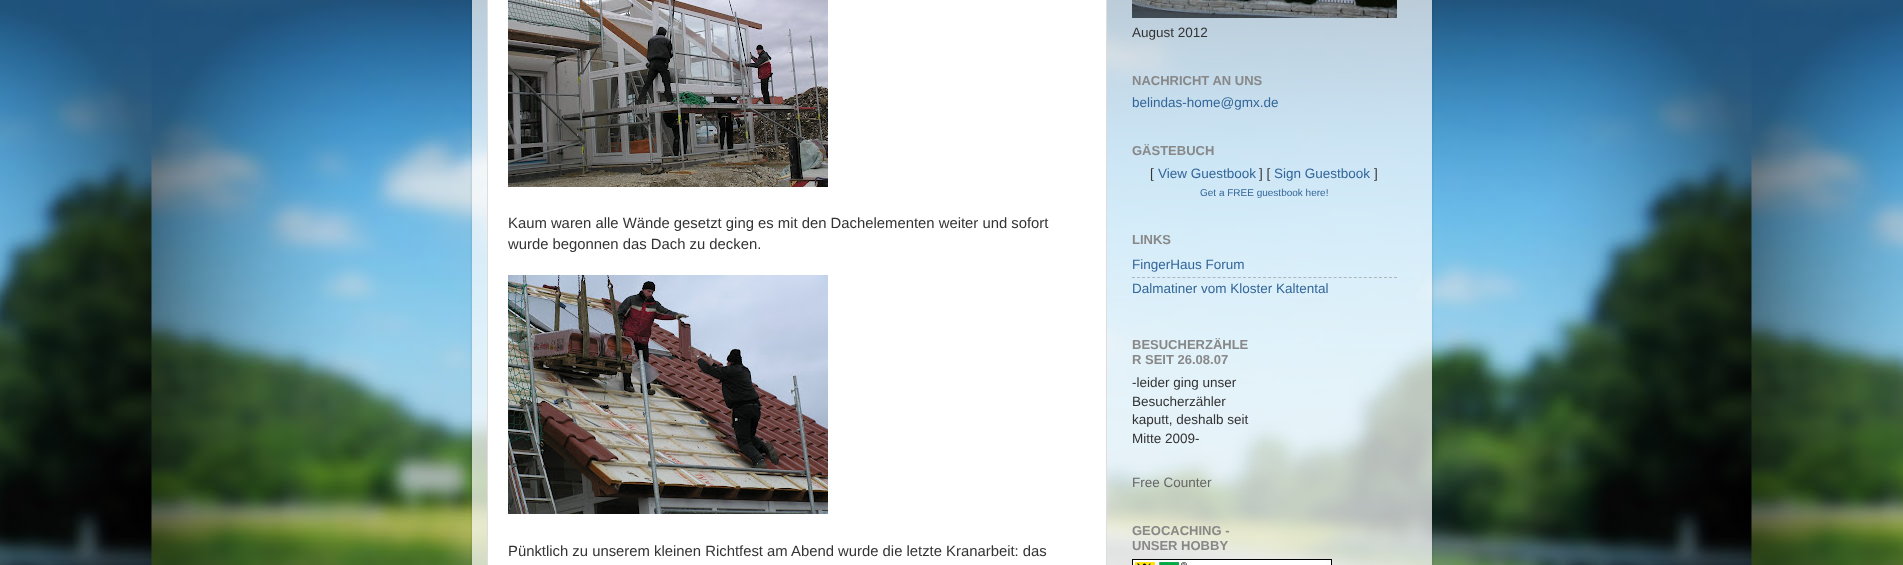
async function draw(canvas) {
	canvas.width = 1903;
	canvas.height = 565;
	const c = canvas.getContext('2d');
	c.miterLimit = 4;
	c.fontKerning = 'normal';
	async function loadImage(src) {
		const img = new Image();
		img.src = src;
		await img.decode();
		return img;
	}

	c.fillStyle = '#fff';
	c.fillRect(0, 0, 1903, 565);
	c.drawImage(await loadImage('img1.png'), 0, 0, 1903, 565);
	c.save();
	c.beginPath();
	c.moveTo(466, 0);
	c.lineTo(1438, 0);
	c.lineTo(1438, 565);
	c.lineTo(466, 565);
	c.closePath();
	c.moveTo(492, -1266);
	c.lineTo(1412, -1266);
	c.bezierCurveTo(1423, -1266, 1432, -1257, 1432, -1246);
	c.lineTo(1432, 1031);
	c.lineTo(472, 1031);
	c.lineTo(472, -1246);
	c.bezierCurveTo(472, -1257, 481, -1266, 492, -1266);
	c.closePath();
	c.clip('evenodd');
	c.fillStyle = '#00000026';
	c.filter = 'blur(1.5px)';
	c.beginPath();
	c.roundRect(472, -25, 960, 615, 20);
	c.fill();
	c.filter = 'none';
	c.restore();
	c.fillStyle = '#ffffffb3';
	c.fillRect(472, 0, 960, 565);
	c.fillStyle = '#fff';
	c.beginPath();
	c.rect(487.5, -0.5, 619, 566);
	c.fill();
	c.strokeStyle = '#ddd';
	c.stroke();
	c.drawImage(await loadImage('img2.png'), 508, 0, 320, 187);
	c.font = '14.85px Liberation Sans';
	c.fillStyle = '#333';
	c.fillText('Kaum waren alle Wände gesetzt ging es mit den Dachelementen weiter und sofort', 508, 228);
	c.fillText('wurde begonnen das Dach zu decken.', 508, 249);
	c.drawImage(await loadImage('img3.png'), 508, 275, 320, 239);
	c.fillText('Pünktlich zu unserem kleinen Richtfest am Abend wurde die letzte Kranarbeit: das', 508, 556);
	c.drawImage(await loadImage('img4.png'), 1132, 0, 265, 18);
	c.font = '13.5px Liberation Sans';
	c.fillText('August 2012', 1132, 37);
	c.font = 'bold 13px Liberation Sans';
	c.fillStyle = '#888';
	c.fillText('NACHRICHT AN UNS', 1132, 85);
	c.font = '13.5px Liberation Sans';
	c.fillStyle = '#369';
	c.fillText('belindas-home@gmx.de', 1132, 107);
	c.font = 'bold 13px Liberation Sans';
	c.fillStyle = '#888';
	c.fillText('GÄSTEBUCH', 1132, 155);
	c.font = '13.5px Liberation Sans';
	c.fillStyle = '#333';
	c.fillText('[', 1150, 178);
	c.fillStyle = '#369';
	c.fillText('View Guestbook', 1158, 178);
	c.fillStyle = '#333';
	c.fillText('] [', 1259, 178);
	c.fillStyle = '#369';
	c.fillText('Sign Guestbook', 1274, 178);
	c.fillStyle = '#333';
	c.fillText(']', 1374, 178);
	c.font = '10px Liberation Sans';
	c.fillStyle = '#369';
	c.fillText('Get a FREE guestbook here!', 1200, 196);
	c.font = 'bold 13px Liberation Sans';
	c.fillStyle = '#888';
	c.fillText('LINKS', 1132, 244);
	c.font = '13.5px Liberation Sans';
	c.fillStyle = '#369';
	c.fillText('FingerHaus Forum', 1132, 269);
	c.beginPath();
	c.moveTo(1132, 277.5);
	c.lineTo(1397, 277.5);
	c.strokeStyle = '#adb7bc';
	c.setLineDash([3, 2.04]);
	c.stroke();
	c.fillText('Dalmatiner vom Kloster Kaltental', 1132, 293);
	c.font = 'bold 13px Liberation Sans';
	c.fillStyle = '#888';
	c.fillText('BESUCHERZÄHLE', 1132, 349);
	c.fillText('R SEIT 26.08.07', 1132, 364);
	c.font = '13.5px Liberation Sans';
	c.fillStyle = '#333';
	for (const [text, x, y] of [
		['-leider ging unser', 1132, 387],
		['Besucherzähler', 1132, 406],
		['kaputt, deshalb seit', 1132, 424],
		['Mitte 2009-', 1132, 443],
	]) {
		c.fillText(text, x, y);
	}
	c.fillStyle = '#666';
	c.fillText('Free Counter', 1132, 487);
	c.font = 'bold 13px Liberation Sans';
	c.fillStyle = '#888';
	c.fillText('GEOCACHING -', 1132, 535);
	c.fillText('UNSER HOBBY', 1132, 550);
	c.drawImage(await loadImage('img5.png'), 1132, 559, 200, 6);
}

draw(document.querySelector('canvas'));
